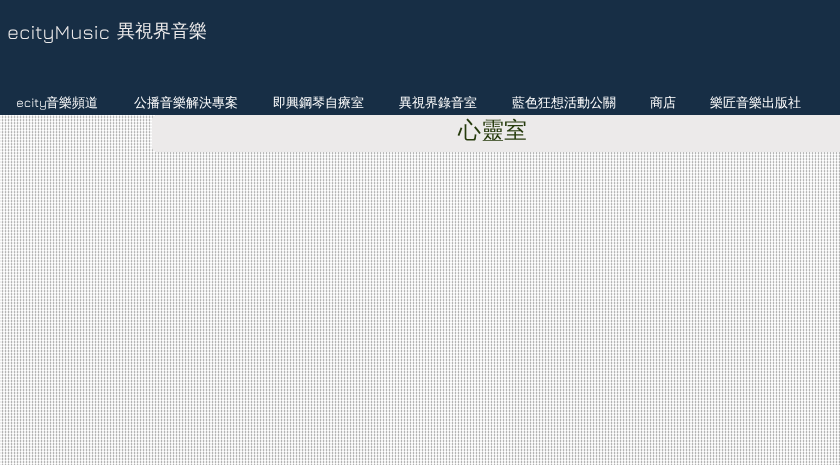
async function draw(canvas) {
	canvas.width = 840;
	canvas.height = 465;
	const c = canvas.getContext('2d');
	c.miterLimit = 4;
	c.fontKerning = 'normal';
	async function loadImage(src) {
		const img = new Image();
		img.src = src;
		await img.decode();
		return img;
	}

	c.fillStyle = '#fff';
	c.fillRect(0, 0, 840, 465);
	c.fillStyle = '#172e45';
	c.fillRect(0, 0, 840, 115);
	c.font = '20px Jura';
	c.fillStyle = '#eceaea';
	c.fillText('ecityMusic', 7, 39);
	c.font = '500 18px WenQuanYi Zen Hei';
	c.fillText('異視界音樂', 117, 37);
	c.font = '13px Jura';
	c.fillStyle = '#fff';
	c.fillText('ecity', 16, 107);
	c.font = '500 13px WenQuanYi Zen Hei';
	for (const [text, x, y] of [
		['音樂頻道', 46, 107],
		['公播音樂解決專案', 134, 107],
		['即興鋼琴自療室', 273, 107],
		['異視界錄音室', 399, 107],
		['藍色狂想活動公關', 512, 107],
		['商店', 650, 107],
		['樂匠音樂出版社', 710, 107],
	]) {
		c.fillText(text, x, y);
	}
	c.drawImage(await loadImage('img1.png'), 0, 115, 840, 350);
	c.fillStyle = '#eceaea';
	c.beginPath();
	c.roundRect(152.5, 115.5, 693, 36, 4.5);
	c.fill();
	c.strokeStyle = '#eceaea';
	c.stroke();
	c.font = '500 23px WenQuanYi Zen Hei';
	c.fillStyle = '#263b0d';
	c.fillText('心靈室', 458, 138);
}

draw(document.querySelector('canvas'));
